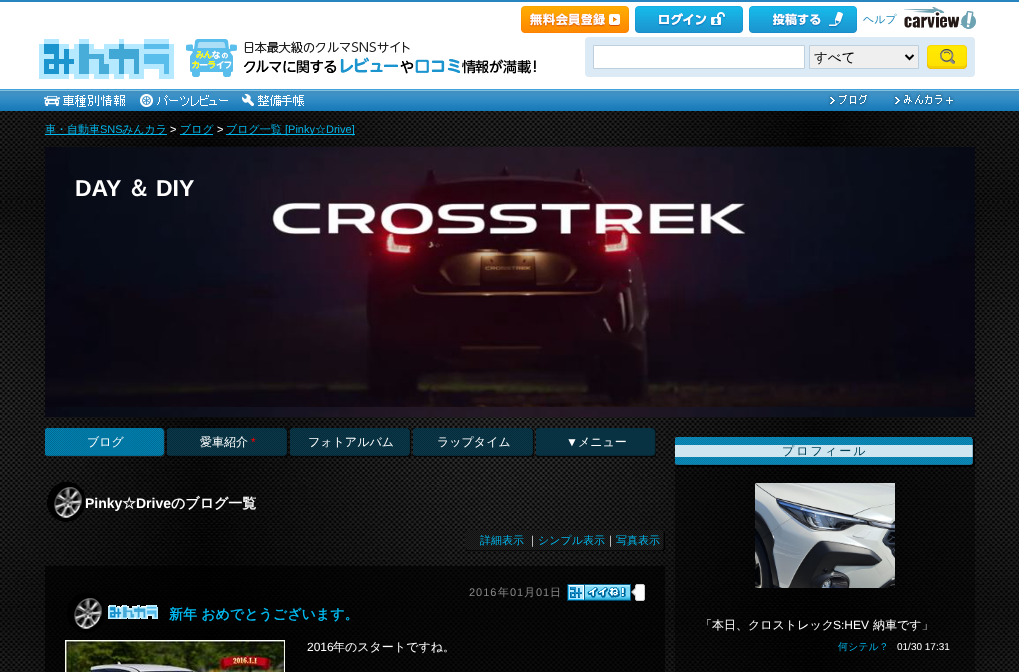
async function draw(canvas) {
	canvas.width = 1019;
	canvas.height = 672;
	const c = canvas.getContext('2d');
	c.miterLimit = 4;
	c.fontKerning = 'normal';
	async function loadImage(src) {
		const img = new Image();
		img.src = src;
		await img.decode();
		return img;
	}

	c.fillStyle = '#fff';
	c.fillRect(0, 0, 1019, 672);
	c.drawImage(await loadImage('img1.png'), 0, 89, 1019, 22);
	c.fillStyle = '#2885c0';
	c.fillRect(0, 0, 1019, 2);
	c.drawImage(await loadImage('img2.png'), 521, 6, 108, 27);
	c.drawImage(await loadImage('img3.png'), 635, 6, 108, 27);
	c.drawImage(await loadImage('img4.png'), 749, 6, 108, 27);
	c.font = '500 11px WenQuanYi Zen Hei';
	c.fillStyle = '#1e89bb';
	c.fillText('ヘルプ', 863, 23);
	c.drawImage(await loadImage('img5.png'), 904, 7, 72, 22);
	c.drawImage(await loadImage('img6.png'), 39, 39, 135, 40);
	c.drawImage(await loadImage('img7.png'), 186, 39, 350, 38);
	c.fillStyle = '#dceaf5';
	c.beginPath();
	c.roundRect(585, 37, 390, 40, 4);
	c.fill();
	c.fillStyle = '#fff';
	c.beginPath();
	c.rect(593.5, 45.5, 211, 23);
	c.fill();
	c.strokeStyle = '#bed0de';
	c.stroke();
	c.fillStyle = '#efefef';
	c.beginPath();
	c.rect(809.5, 45.5, 109, 23);
	c.fill();
	c.stroke();
	c.beginPath();
	c.moveTo(905.5, 55);
	c.lineTo(909.5, 59);
	c.lineTo(913.5, 55);
	c.strokeStyle = '#000';
	c.lineWidth = 2;
	c.stroke();
	c.font = '500 13.5px WenQuanYi Zen Hei';
	c.fillStyle = '#000';
	c.fillText('すべて', 814, 62);
	c.drawImage(await loadImage('img8.png'), 927, 45, 40, 24);
	c.drawImage(await loadImage('img9.png'), 44, 95, 81, 12);
	c.drawImage(await loadImage('img10.png'), 140, 94, 88, 13);
	c.drawImage(await loadImage('img11.png'), 242, 94, 62, 12);
	c.drawImage(await loadImage('img12.png'), 828, 92, 42, 15);
	c.drawImage(await loadImage('img13.png'), 893, 92, 62, 15);
	c.drawImage(await loadImage('img14.png'), 0, 111, 1019, 561);
	c.fillStyle = '#00b7ec';
	c.fillRect(45, 134, 122, 1);
	c.font = '500 11px WenQuanYi Zen Hei';
	c.fillText('車・自動車', 45, 133);
	c.font = '11px Liberation Sans';
	c.fillText('SNS', 100, 133);
	c.font = '500 11px WenQuanYi Zen Hei';
	c.fillText('みんカラ', 122, 133);
	c.font = '11px Liberation Sans';
	c.fillStyle = '#fff';
	c.fillText('>', 170, 133);
	c.fillStyle = '#00b7ec';
	c.fillRect(180, 134, 33, 1);
	c.font = '500 11px WenQuanYi Zen Hei';
	c.fillText('ブログ', 180, 133);
	c.font = '11px Liberation Sans';
	c.fillStyle = '#fff';
	c.fillText('>', 217, 133);
	c.fillStyle = '#00b7ec';
	c.fillRect(226, 134, 129, 1);
	c.font = '500 11px WenQuanYi Zen Hei';
	c.fillText('ブログ一覧', 226, 133);
	c.font = '11px Liberation Sans';
	c.fillText('[Pinky', 285, 133);
	c.font = '500 11px WenQuanYi Zen Hei';
	c.fillText('☆', 315, 133);
	c.font = '11px Liberation Sans';
	c.fillText('Drive]', 326, 133);
	c.drawImage(await loadImage('img15.png'), 45, 147, 930, 270);
	c.font = 'bold 23px Liberation Sans';
	c.fillStyle = '#fff';
	c.fillText('DAY', 75, 196);
	c.font = 'bold 23px WenQuanYi Zen Hei';
	c.fillText('＆', 127, 196);
	c.font = 'bold 23px Liberation Sans';
	c.fillText('DIY', 156, 196);
	c.drawImage(await loadImage('img16.png'), 45, 428, 120, 29);
	c.font = '500 12px WenQuanYi Zen Hei';
	c.fillText('ブログ', 87, 446);
	c.drawImage(await loadImage('img17.png'), 167, 428, 121, 29);
	c.fillText('愛車紹介', 200, 446);
	c.font = '12px Liberation Sans';
	c.fillStyle = '#f00';
	c.fillText('*', 251, 446);
	c.drawImage(await loadImage('img18.png'), 290, 428, 121, 29);
	c.font = '500 12px WenQuanYi Zen Hei';
	c.fillStyle = '#fff';
	c.fillText('フォトアルバム', 308, 446);
	c.drawImage(await loadImage('img19.png'), 413, 428, 121, 29);
	c.fillText('ラップタイム', 437, 446);
	c.drawImage(await loadImage('img20.png'), 536, 428, 120, 29);
	c.font = '12px Liberation Sans';
	c.fillText('▼', 566, 446);
	c.font = '500 12px WenQuanYi Zen Hei';
	c.fillText('メニュー', 578, 446);
	c.drawImage(await loadImage('img21.png'), 47, 482, 38, 40);
	c.font = 'bold 14px Liberation Sans';
	c.fillText('Pinky', 85, 508);
	c.font = 'bold 14px WenQuanYi Zen Hei';
	c.fillText('☆', 122, 508);
	c.font = 'bold 14px Liberation Sans';
	c.fillText('Drive', 136, 508);
	c.font = 'bold 14px WenQuanYi Zen Hei';
	c.fillText('のブログ一覧', 171, 508);
	c.drawImage(await loadImage('img22.png'), 465, 530, 200, 21);
	c.font = '500 11px WenQuanYi Zen Hei';
	c.fillStyle = '#00b7ec';
	c.fillText('詳細表示', 480, 544);
	c.fillStyle = '#fff';
	c.fillText('｜', 527, 544);
	c.fillStyle = '#00b7ec';
	c.fillText('シンプル表示', 538, 544);
	c.fillStyle = '#fff';
	c.fillText('｜', 605, 544);
	c.fillStyle = '#00b7ec';
	c.fillText('写真表示', 616, 544);
	c.fillStyle = '#000000a6';
	c.fillRect(45, 566, 620, 4);
	c.fillRect(45, 570, 620, 102);
	c.letterSpacing = '1px';
	c.font = '11px Liberation Sans';
	c.fillStyle = '#888';
	c.fillText('2016', 469, 596);
	c.font = '500 11px WenQuanYi Zen Hei';
	c.fillText('年', 498, 596);
	c.font = '11px Liberation Sans';
	c.fillText('01', 510, 596);
	c.font = '500 11px WenQuanYi Zen Hei';
	c.fillText('月', 524, 596);
	c.font = '11px Liberation Sans';
	c.fillText('01', 536, 596);
	c.font = '500 11px WenQuanYi Zen Hei';
	c.fillText('日', 550, 596);
	c.drawImage(await loadImage('img23.png'), 567, 584, 64, 17);
	c.fillStyle = '#fff';
	c.beginPath();
	c.roundRect(635.5, 584.5, 9, 16, 1.5);
	c.fill();
	c.strokeStyle = '#ccc';
	c.lineWidth = 1;
	c.stroke();
	c.fillStyle = '#ccc';
	c.beginPath();
	c.moveTo(636, 587);
	c.lineTo(636, 597);
	c.lineTo(631, 592);
	c.closePath();
	c.fill();
	c.fillStyle = '#fff';
	c.beginPath();
	c.moveTo(637, 588);
	c.lineTo(637, 596);
	c.lineTo(633, 592);
	c.closePath();
	c.fill();
	c.drawImage(await loadImage('img24.png'), 67, 593, 38, 40);
	c.drawImage(await loadImage('img25.png'), 108, 605, 50, 14);
	c.letterSpacing = '0px';
	c.font = 'bold 14px WenQuanYi Zen Hei';
	c.fillStyle = '#00b7ec';
	c.fillText('新年 おめでとうございます。', 169, 619);
	c.drawImage(await loadImage('img26.png'), 65, 640, 220, 32);
	c.font = '12px Liberation Sans';
	c.fillStyle = '#fff';
	c.fillText('2016', 307, 651);
	c.font = '500 12px WenQuanYi Zen Hei';
	c.fillText('年のスタートですね。', 333, 651);
	c.fillStyle = '#00000066';
	c.fillRect(675, 437, 300, 235);
	c.drawImage(await loadImage('img27.png'), 675, 437, 300, 30);
	c.letterSpacing = '2px';
	c.fillStyle = '#00425a';
	c.fillText('プロフィール', 782, 455);
	c.drawImage(await loadImage('img28.png'), 755, 483, 140, 105);
	c.letterSpacing = '0px';
	c.fillStyle = '#fff';
	c.fillText('「本日、クロストレック', 700, 629);
	c.font = '12px Liberation Sans';
	c.fillText('S:HEV', 833, 629);
	c.font = '500 12px WenQuanYi Zen Hei';
	c.fillText('納車です」', 873, 629);
	c.font = '500 10px WenQuanYi Zen Hei';
	c.fillStyle = '#00b7ec';
	c.fillText('何シテル？', 838, 650);
	c.font = '10px Liberation Sans';
	c.fillStyle = '#fff';
	c.fillText('01/30 17:31', 897, 650);
}

draw(document.querySelector('canvas'));
